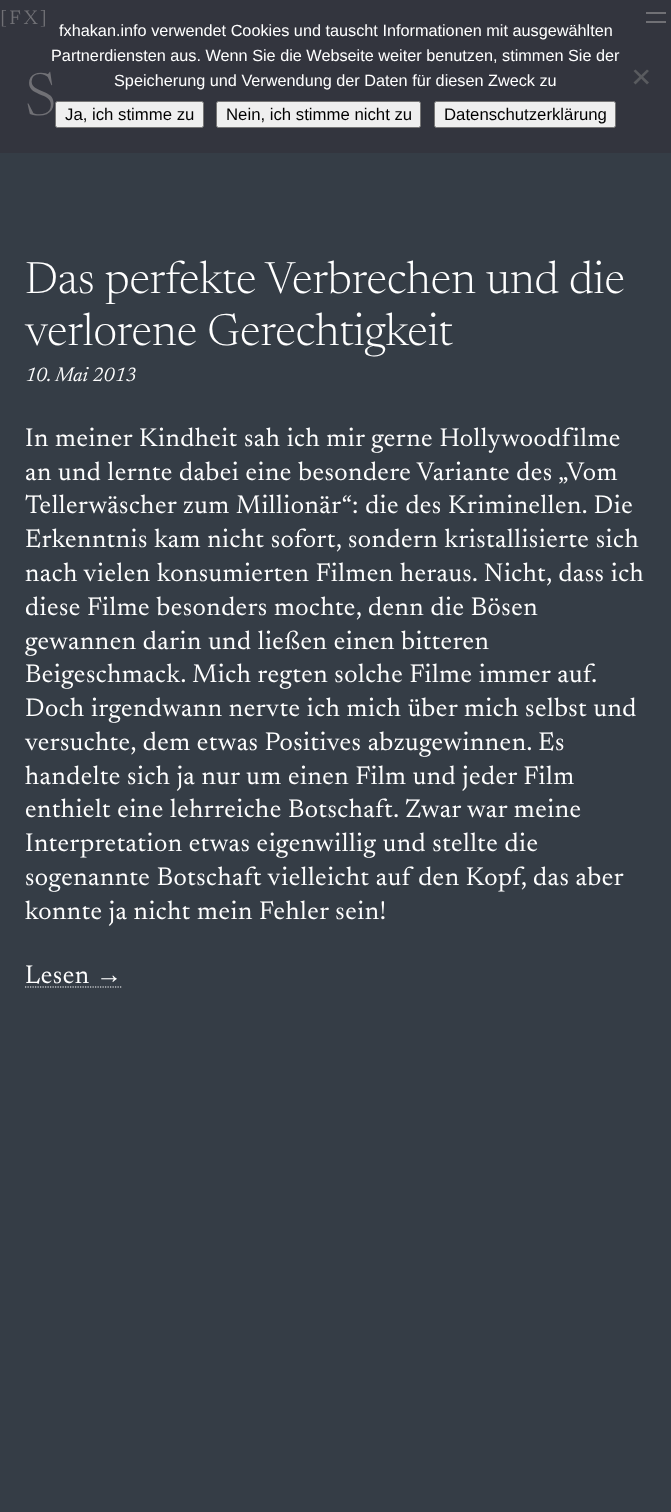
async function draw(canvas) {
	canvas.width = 671;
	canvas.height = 1512;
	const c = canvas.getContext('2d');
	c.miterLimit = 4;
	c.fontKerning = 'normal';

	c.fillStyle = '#353d46';
	c.fillRect(0, 0, 671, 1512);
	c.fillStyle = '#33353e';
	c.fillRect(0, 0, 671, 153);
	c.letterSpacing = '3px';
	c.font = '20px "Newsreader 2"';
	c.fillStyle = '#707075';
	c.fillText('[FX]', 0, 24);
	c.fillRect(646, 12, 20, 2);
	c.fillRect(646, 21, 20, 2);
	c.letterSpacing = '0px';
	c.font = '300 60px Newsreader';
	c.fillText('S', 25, 115);
	c.font = '300 45px "Newsreader 2"';
	c.fillStyle = '#fff';
	c.fillText('Das perfekte Verbrechen und die', 25, 293);
	c.fillText('verlorene Gerechtigkeit', 25, 345);
	c.font = 'italic 20px Newsreader';
	c.fillText('10. Mai 2013', 25, 381);
	c.letterSpacing = '0.5px';
	c.font = '26px Newsreader';
	for (const [text, x, y] of [
		['In meiner Kindheit sah ich mir gerne Hollywoodfilme', 25, 446],
		['an und lernte dabei eine besondere Variante des „Vom', 25, 480],
		['Tellerwäscher zum Millionär“: die des Kriminellen. Die', 25, 513],
		['Erkenntnis kam nicht sofort, sondern kristallisierte sich', 25, 547],
		['nach vielen konsumierten Filmen heraus. Nicht, dass ich', 25, 581],
		['diese Filme besonders mochte, denn die Bösen', 25, 615],
		['gewannen darin und ließen einen bitteren', 25, 649],
		['Beigeschmack. Mich regten solche Filme immer auf.', 25, 682],
		['Doch irgendwann nervte ich mich über mich selbst und', 25, 716],
		['versuchte, dem etwas Positives abzugewinnen. Es', 25, 750],
		['handelte sich ja nur um einen Film und jeder Film', 25, 784],
		['enthielt eine lehrreiche Botschaft. Zwar war meine', 25, 817],
		['Interpretation etwas eigenwillig und stellte die', 25, 851],
		['sogenannte Botschaft vielleicht auf den Kopf, das aber', 25, 885],
		['konnte ja nicht mein Fehler sein!', 25, 919],
		['Lesen', 25, 983],
	]) {
		c.fillText(text, x, y);
	}
	c.font = '26px Liberation Serif';
	c.fillText('→', 96, 983);
	c.beginPath();
	c.moveTo(25, 987);
	c.lineTo(122.5, 987);
	c.strokeStyle = '#fff';
	c.lineWidth = 1.2;
	c.setLineDash([1.25, 1.25]);
	c.stroke();
	c.letterSpacing = '0px';
	c.font = '16.25px Liberation Sans';
	for (const [text, x, y] of [
		['fxhakan.info verwendet Cookies und tauscht Informationen mit ausgewählten', 59, 36],
		['Partnerdiensten aus. Wenn Sie die Webseite weiter benutzen, stimmen Sie der', 51, 61],
		['Speicherung und Verwendung der Daten für diesen Zweck zu', 114, 86],
	]) {
		c.fillText(text, x, y);
	}
	c.fillStyle = '#595b5f';
	c.beginPath();
	c.moveTo(647, 69.5);
	c.lineTo(649, 71);
	c.lineTo(635.5, 84.5);
	c.lineTo(633.5, 82.5);
	c.closePath();
	c.fill();
	c.beginPath();
	c.moveTo(633.5, 71);
	c.lineTo(635.5, 69.5);
	c.lineTo(649, 82.5);
	c.lineTo(647, 84.5);
	c.closePath();
	c.fill();
	c.fillStyle = '#efefef';
	c.beginPath();
	c.roundRect(55.5, 101.5, 148, 26, 2);
	c.fill();
	c.strokeStyle = '#767676';
	c.lineWidth = 1;
	c.setLineDash([]);
	c.stroke();
	c.font = '16.75px Liberation Sans';
	c.fillStyle = '#000';
	c.fillText('Ja, ich stimme zu', 65, 120);
	c.fillStyle = '#efefef';
	c.beginPath();
	c.roundRect(216.5, 101.5, 204, 26, 2);
	c.fill();
	c.stroke();
	c.fillStyle = '#000';
	c.fillText('Nein, ich stimme nicht zu', 226, 120);
	c.fillStyle = '#efefef';
	c.beginPath();
	c.roundRect(434.5, 101.5, 181, 26, 2);
	c.fill();
	c.stroke();
	c.fillStyle = '#000';
	c.fillText('Datenschutzerklärung', 444, 120);
}

draw(document.querySelector('canvas'));
